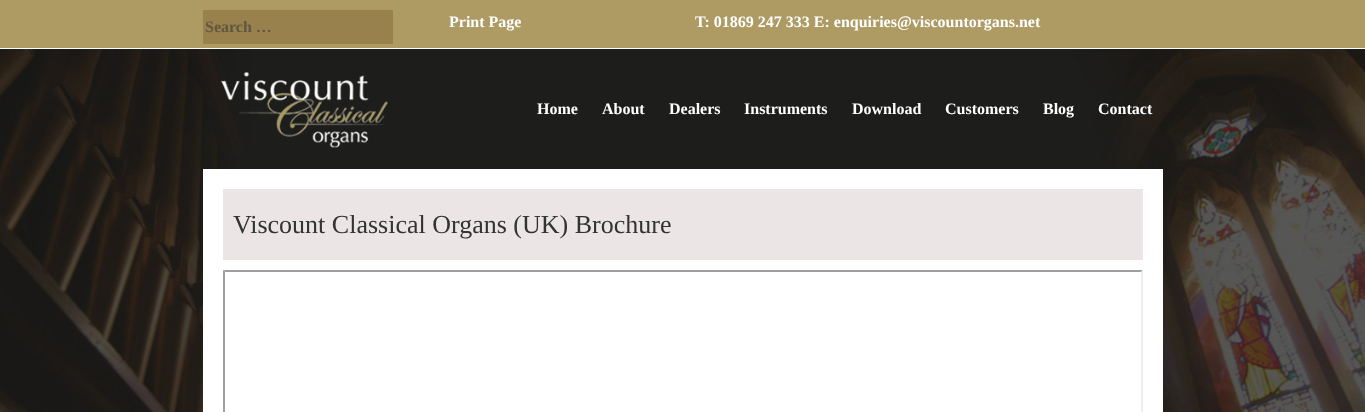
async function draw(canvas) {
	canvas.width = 1365;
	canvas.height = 412;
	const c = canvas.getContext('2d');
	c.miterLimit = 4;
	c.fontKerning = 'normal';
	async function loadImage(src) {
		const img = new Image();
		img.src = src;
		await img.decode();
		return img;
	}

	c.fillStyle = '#fff';
	c.fillRect(0, 0, 1365, 412);
	c.drawImage(await loadImage('img1.png'), 0, 49, 1365, 363);
	c.fillStyle = '#ae9a63';
	c.fillRect(0, 0, 1365, 48);
	c.fillStyle = '#98814c';
	c.fillRect(203, 10, 190, 34);
	c.font = 'bold 16px Liberation Serif';
	c.fillStyle = '#61573f';
	c.fillText('Search …', 205, 32);
	c.fillStyle = '#fff';
	c.fillText('Print Page', 449, 27);
	c.fillText('T: 01869 247 333 E: enquiries@viscountorgans.net', 695, 27);
	c.drawImage(await loadImage('img2.png'), 221, 72, 167, 76);
	for (const [text, x, y] of [
		['Home', 537, 114],
		['About', 602, 114],
		['Dealers', 669, 114],
		['Instruments', 744, 114],
		['Download', 852, 114],
		['Customers', 945, 114],
		['Blog', 1043, 114],
		['Contact', 1098, 114],
	]) {
		c.fillText(text, x, y);
	}
	c.fillRect(203, 169, 960, 243);
	c.fillStyle = '#ebe6e5';
	c.fillRect(223, 189, 920, 71);
	c.font = '26px Liberation Serif';
	c.fillStyle = '#333';
	c.fillText('Viscount Classical Organs (UK) Brochure', 233, 233);
	c.fillStyle = '#9f9f9f';
	c.beginPath();
	c.moveTo(223, 270);
	c.lineTo(1143, 270);
	c.lineTo(1141, 272);
	c.lineTo(225, 272);
	c.closePath();
	c.fill();
	c.beginPath();
	c.moveTo(223, 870);
	c.lineTo(223, 270);
	c.lineTo(225, 272);
	c.lineTo(225, 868);
	c.closePath();
	c.fill();
	c.fillStyle = '#eee';
	c.beginPath();
	c.moveTo(1143, 270);
	c.lineTo(1143, 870);
	c.lineTo(1141, 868);
	c.lineTo(1141, 272);
	c.closePath();
	c.fill();
}

draw(document.querySelector('canvas'));
